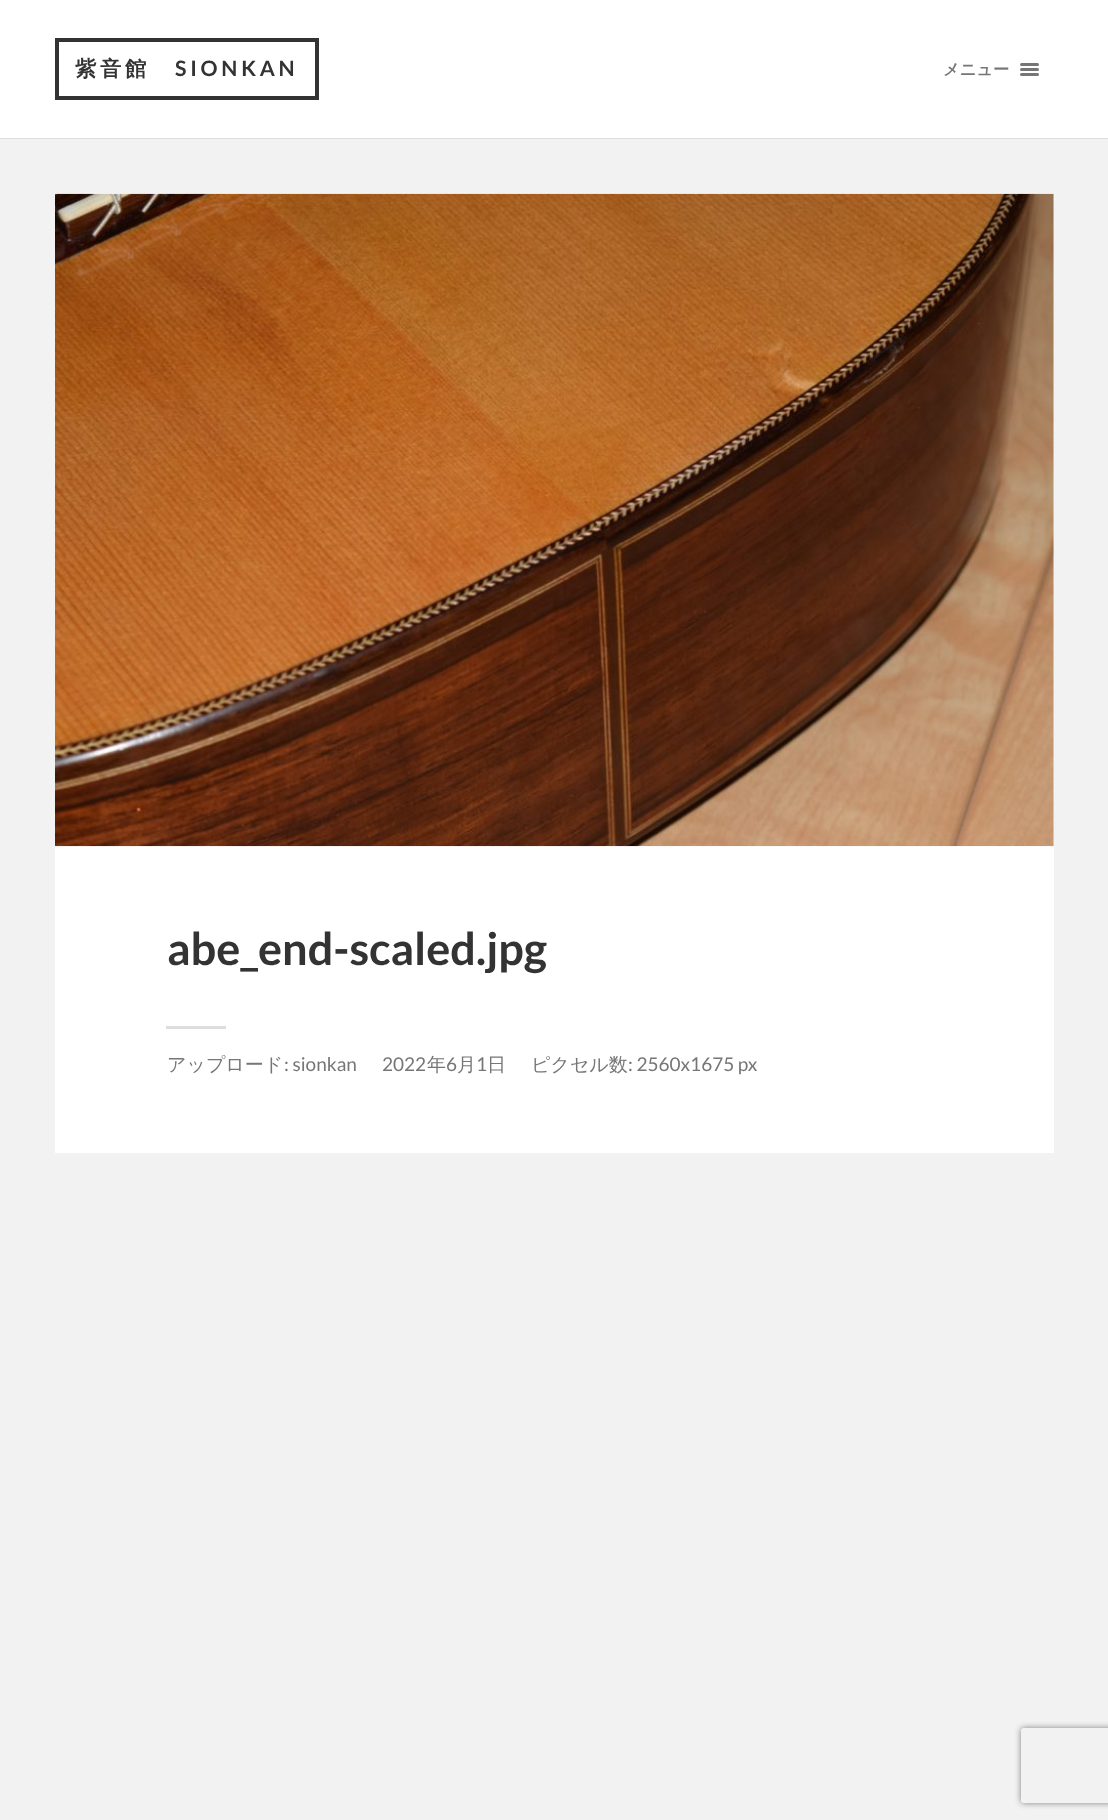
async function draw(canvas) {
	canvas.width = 1108;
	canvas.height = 1820;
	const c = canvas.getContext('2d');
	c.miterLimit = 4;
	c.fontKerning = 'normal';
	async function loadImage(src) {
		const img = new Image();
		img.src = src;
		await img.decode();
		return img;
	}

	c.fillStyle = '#f2f2f2';
	c.fillRect(0, 0, 1108, 1820);
	c.fillStyle = '#fff';
	c.fillRect(0, 0, 1108, 138);
	c.fillStyle = '#ddd';
	c.fillRect(0, 138, 1108, 1);
	c.strokeStyle = '#333';
	c.lineWidth = 4;
	c.strokeRect(57, 40, 260, 58);
	c.letterSpacing = '3.75px';
	c.font = 'bold 21.25px WenQuanYi Zen Hei';
	c.fillStyle = '#333';
	c.fillText('紫音館', 75, 76);
	c.font = 'bold 21.25px Lato';
	c.fillText('SIONKAN', 175, 76);
	c.letterSpacing = '0px';
	c.font = 'bold 16.25px WenQuanYi Zen Hei';
	c.fillStyle = '#767676';
	c.fillText('メニュー', 943, 75);
	c.beginPath();
	c.roundRect(1020, 63, 19, 3, 1.5);
	c.fill();
	c.beginPath();
	c.roundRect(1020, 68, 19, 3, 1.5);
	c.fill();
	c.beginPath();
	c.roundRect(1020, 73, 19, 3, 1.5);
	c.fill();
	c.fillStyle = '#fff';
	c.fillRect(55, 194, 999, 959);
	c.drawImage(await loadImage('img1.png'), 55, 193, 999, 654);
	c.font = 'bold 45px Lato';
	c.fillStyle = '#333';
	c.fillText('abe_end-scaled.jpg', 167, 965);
	c.fillStyle = '#ddd';
	c.fillRect(166, 1026, 60, 3);
	c.font = '500 19px WenQuanYi Zen Hei';
	c.fillStyle = '#767676';
	c.fillText('アップロード', 167, 1071);
	c.font = '19px Lato';
	c.fillText(': sionkan', 284, 1071);
	c.fillText('2022', 382, 1071);
	c.font = '500 19px WenQuanYi Zen Hei';
	c.fillText('年', 427, 1071);
	c.font = '19px Lato';
	c.fillText('6', 446, 1071);
	c.font = '500 19px WenQuanYi Zen Hei';
	c.fillText('月', 457, 1071);
	c.font = '19px Lato';
	c.fillText('1', 476, 1071);
	c.font = '500 19px WenQuanYi Zen Hei';
	c.fillText('日', 487, 1071);
	c.fillText('ピクセル数', 531, 1071);
	c.font = '19px Lato';
	c.fillText(': 2560x1675 px', 628, 1071);
	c.save();
	c.beginPath();
	c.moveTo(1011, 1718);
	c.lineTo(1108, 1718);
	c.lineTo(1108, 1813);
	c.lineTo(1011, 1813);
	c.closePath();
	c.moveTo(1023.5, 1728);
	c.lineTo(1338.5, 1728);
	c.bezierCurveTo(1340, 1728, 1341, 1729, 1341, 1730.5);
	c.lineTo(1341, 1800.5);
	c.bezierCurveTo(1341, 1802, 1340, 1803, 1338.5, 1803);
	c.lineTo(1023.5, 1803);
	c.bezierCurveTo(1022, 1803, 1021, 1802, 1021, 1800.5);
	c.lineTo(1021, 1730.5);
	c.bezierCurveTo(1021, 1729, 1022, 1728, 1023.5, 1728);
	c.closePath();
	c.clip('evenodd');
	c.fillStyle = '#808080';
	c.filter = 'blur(3px)';
	c.beginPath();
	c.roundRect(1021, 1728, 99, 75, 2.5);
	c.fill();
	c.filter = 'none';
	c.restore();
}

draw(document.querySelector('canvas'));
